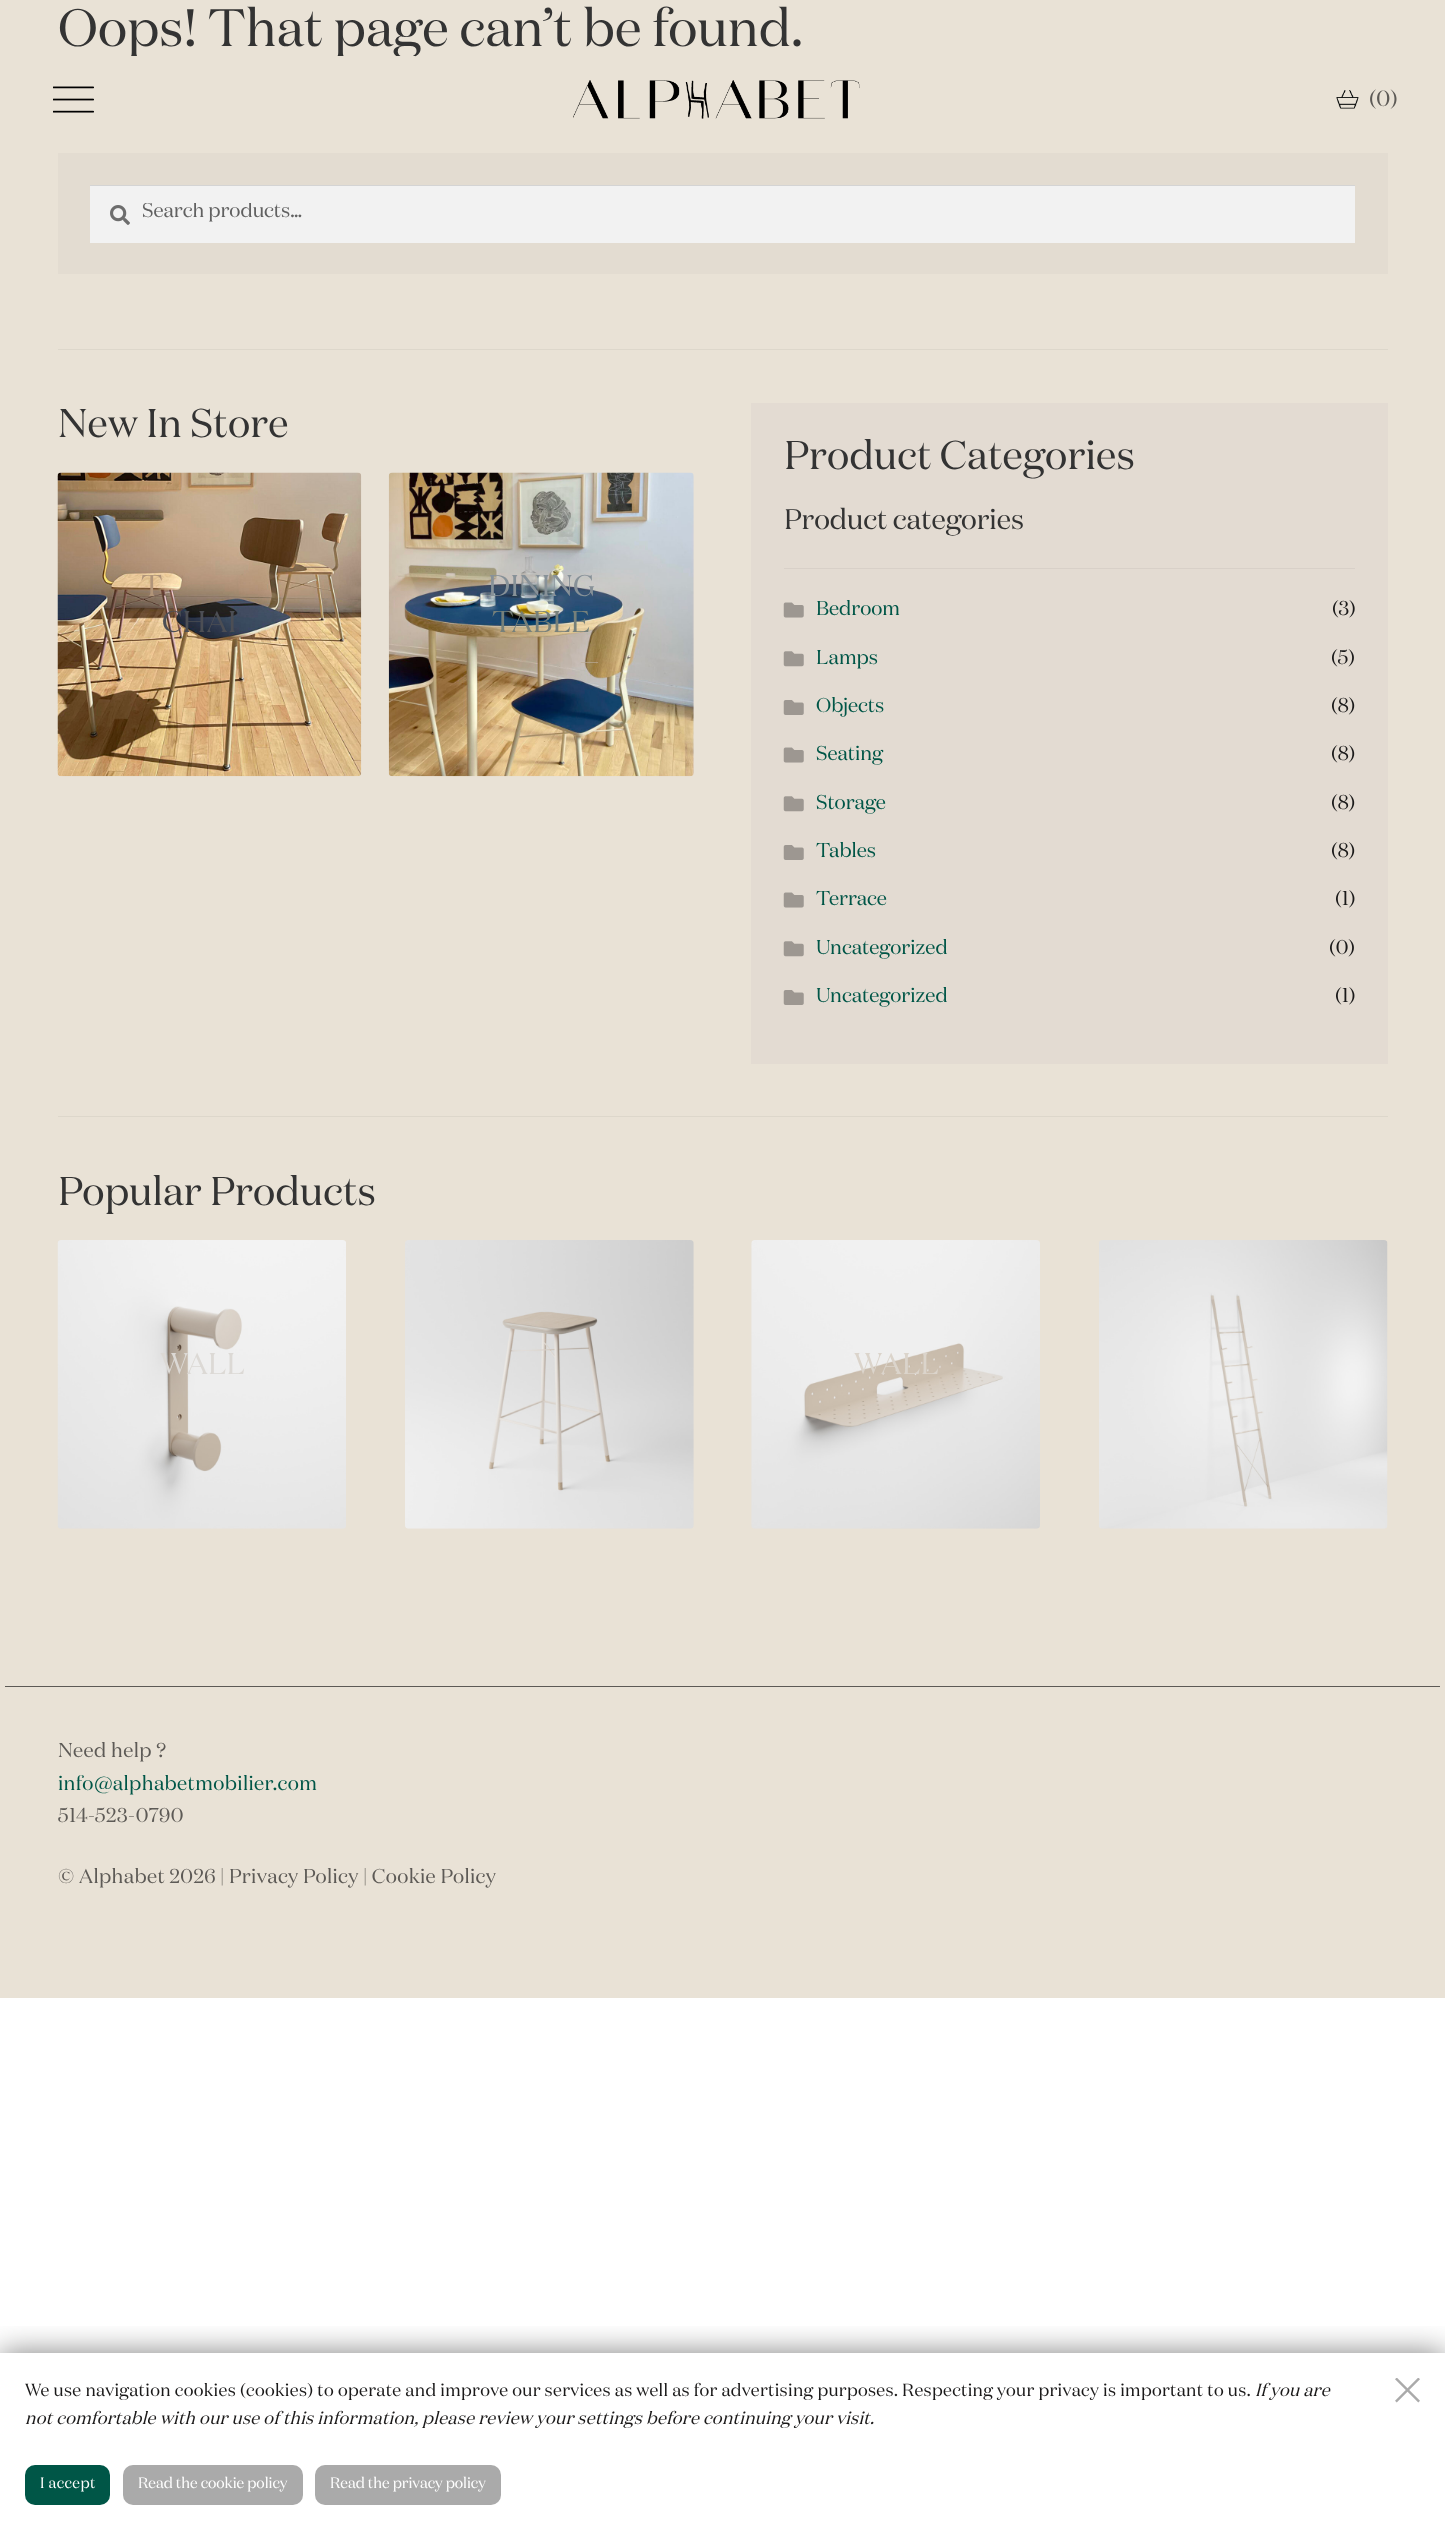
async function draw(canvas) {
	canvas.width = 1445;
	canvas.height = 2536;
	const c = canvas.getContext('2d');
	c.miterLimit = 4;
	c.fontKerning = 'normal';
	async function loadImage(src) {
		const img = new Image();
		img.src = src;
		await img.decode();
		return img;
	}

	c.fillStyle = '#fff';
	c.fillRect(0, 0, 1445, 2536);
	c.fillStyle = '#e9e2d6';
	c.fillRect(0, 0, 1445, 1998);
	c.letterSpacing = '0.2px';
	c.font = '52.4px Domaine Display';
	c.fillStyle = '#333';
	c.fillText('Oops! That page can’t be found.', 58, 46);
	c.fillStyle = '#e3dcd1';
	c.fillRect(58, 153, 1330, 121);
	c.fillStyle = '#f2f2f2';
	c.fillRect(90, 186, 1265, 57);
	c.drawImage(await loadImage('img1.png'), 110, 205, 20, 20);
	c.fillStyle = '#d4d4d4';
	c.fillRect(90, 185, 1265, 1);
	c.save();
	c.beginPath();
	c.rect(143, 203, 1195, 20);
	c.clip();
	c.letterSpacing = '0px';
	c.font = '20px Domaine Display';
	c.fillStyle = '#616161';
	c.fillText('Search products…', 142, 217);
	c.restore();
	c.fillStyle = '#ddd7cb';
	c.fillRect(58, 349, 1330, 1);
	c.fillRect(58, 1116, 1330, 1);
	c.font = '40px Domaine Display';
	c.fillStyle = '#333';
	c.fillText('New In Store', 58, 437);
	c.drawImage(await loadImage('img2.png'), 57, 472, 305, 305);
	c.font = '30px Domaine Display';
	c.fillStyle = '#b19579';
	c.fillText('T', 141, 596);
	c.fillStyle = '#4c4e54';
	c.fillText('CHAI', 162, 632);
	c.drawImage(await loadImage('img3.png'), 388, 472, 306, 305);
	c.fillStyle = '#879198';
	c.fillText('DINING', 488, 596);
	c.fillStyle = '#76807a';
	c.fillText('TABLE', 492, 632);
	c.font = '24px Domaine Display';
	c.fillStyle = '#baac99';
	c.fillText('—', 580, 669);
	c.fillStyle = '#e3dbd2';
	c.fillRect(751, 403, 637, 661);
	c.font = '40px Domaine Display';
	c.fillStyle = '#333';
	c.fillText('Product Categories', 784, 469);
	c.fillStyle = '#d8d0c8';
	c.fillRect(784, 568, 571, 1);
	c.letterSpacing = '0px';
	c.font = '28.25px Domaine Display';
	c.fillStyle = '#333';
	c.fillText('Product categories', 784, 529);
	c.drawImage(await loadImage('img4.png'), 783, 602, 21, 16);
	c.font = '20px Domaine Display';
	c.fillStyle = '#005647';
	c.fillText('Bedroom', 816, 615);
	c.fillStyle = '#1b1a1a';
	c.fillText('(3)', 1332, 615);
	c.drawImage(await loadImage('img5.png'), 783, 651, 21, 16);
	c.fillStyle = '#005647';
	c.fillText('Lamps', 816, 664);
	c.fillStyle = '#1b1a1a';
	c.fillText('(5)', 1331, 664);
	c.drawImage(await loadImage('img6.png'), 783, 700, 21, 15);
	c.fillStyle = '#005647';
	c.fillText('Objects', 816, 712);
	c.fillStyle = '#1b1a1a';
	c.fillText('(8)', 1331, 712);
	c.drawImage(await loadImage('img4.png'), 783, 747, 21, 16);
	c.fillStyle = '#005647';
	c.fillText('Seating', 816, 760);
	c.fillStyle = '#1b1a1a';
	c.fillText('(8)', 1331, 760);
	c.drawImage(await loadImage('img5.png'), 783, 796, 21, 16);
	c.fillStyle = '#005647';
	c.fillText('Storage', 816, 809);
	c.fillStyle = '#1b1a1a';
	c.fillText('(8)', 1331, 809);
	c.drawImage(await loadImage('img6.png'), 783, 845, 21, 15);
	c.fillStyle = '#005647';
	c.fillText('Tables', 816, 857);
	c.fillStyle = '#1b1a1a';
	c.fillText('(8)', 1331, 857);
	c.drawImage(await loadImage('img4.png'), 783, 892, 21, 16);
	c.fillStyle = '#005647';
	c.fillText('Terrace', 816, 905);
	c.fillStyle = '#1b1a1a';
	c.fillText('(1)', 1335, 905);
	c.drawImage(await loadImage('img5.png'), 783, 941, 21, 16);
	c.fillStyle = '#005647';
	c.fillText('Uncategorized', 816, 954);
	c.fillStyle = '#1b1a1a';
	c.fillText('(0)', 1329, 954);
	c.drawImage(await loadImage('img6.png'), 783, 990, 21, 15);
	c.fillStyle = '#005647';
	c.fillText('Uncategorized', 816, 1002);
	c.fillStyle = '#1b1a1a';
	c.fillText('(1)', 1335, 1002);
	c.letterSpacing = '0.2px';
	c.font = '40px Domaine Display';
	c.fillStyle = '#333';
	c.fillText('Popular Products', 58, 1205);
	c.drawImage(await loadImage('img7.png'), 57, 1240, 289, 289);
	c.font = '30px Domaine Display';
	c.fillStyle = '#dcd9d5';
	c.fillText('WALL', 160, 1374);
	c.drawImage(await loadImage('img8.png'), 405, 1240, 289, 289);
	c.drawImage(await loadImage('img9.png'), 751, 1240, 289, 289);
	c.fillStyle = '#dbd4cb';
	c.fillText('WALL', 854, 1374);
	c.drawImage(await loadImage('img10.png'), 1099, 1240, 289, 289);
	c.fillStyle = '#e9e2d6';
	c.fillRect(128, 56, 287, 3);
	c.drawImage(await loadImage('img11.png'), 53, 86, 41, 27);
	c.drawImage(await loadImage('img12.png'), 573, 80, 287, 39);
	c.drawImage(await loadImage('img13.png'), 1336, 90, 23, 19);
	c.letterSpacing = '0px';
	c.font = '22px Domaine Display';
	c.fillStyle = '#5d5a56';
	c.fillText('(0)', 1369, 106);
	c.fillRect(5, 1686, 1435, 1);
	c.letterSpacing = '0.4px';
	c.font = '20px Domaine Display';
	c.fillText('Need help ?', 58, 1757);
	c.fillStyle = '#005647';
	c.fillText('info@alphabetmobilier.com', 58, 1790);
	c.fillStyle = '#5d5a56';
	c.fillText('514-523-0790', 58, 1822);
	c.fillText('© Alphabet 2026 | Privacy Policy | Cookie Policy', 58, 1883);
	c.save();
	c.beginPath();
	c.rect(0, 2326, 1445, 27);
	c.clip();
	c.fillStyle = '#00000080';
	c.filter = 'blur(15.5px)';
	c.beginPath();
	c.rect(0, 2353, 1445, 183);
	c.fill();
	c.filter = 'none';
	c.restore();
	c.letterSpacing = '0.35px';
	c.font = '17.5px Domaine Display';
	c.fillStyle = '#1b1a1a';
	c.fillText('We use navigation cookies (cookies) to operate and improve our services as well as for advertising purposes. Respecting your privacy is important to us.', 25, 2396);
	c.font = 'italic 17.5px Domaine Display';
	c.fillText('If you are', 1255, 2396);
	c.fillText('not comfortable with our use of this information, please review your settings before continuing your visit.', 25, 2424);
	c.drawImage(await loadImage('img14.png'), 1395, 2378, 25, 25);
	c.fillStyle = '#005647';
	c.beginPath();
	c.roundRect(25, 2465, 85, 40, 10);
	c.fill();
	c.letterSpacing = '0.5px';
	c.font = '15px Domaine Display';
	c.fillStyle = '#fff';
	c.fillText('I accept', 40, 2488);
	c.fillStyle = '#aaa';
	c.beginPath();
	c.roundRect(123, 2465, 180, 40, 10);
	c.fill();
	c.letterSpacing = '0px';
	c.fillStyle = '#fff';
	c.fillText('Read the cookie policy', 138, 2488);
	c.fillStyle = '#aaa';
	c.beginPath();
	c.roundRect(315, 2465, 186, 40, 10);
	c.fill();
	c.fillStyle = '#fff';
	c.fillText('Read the privacy policy', 330, 2488);
}

draw(document.querySelector('canvas'));
